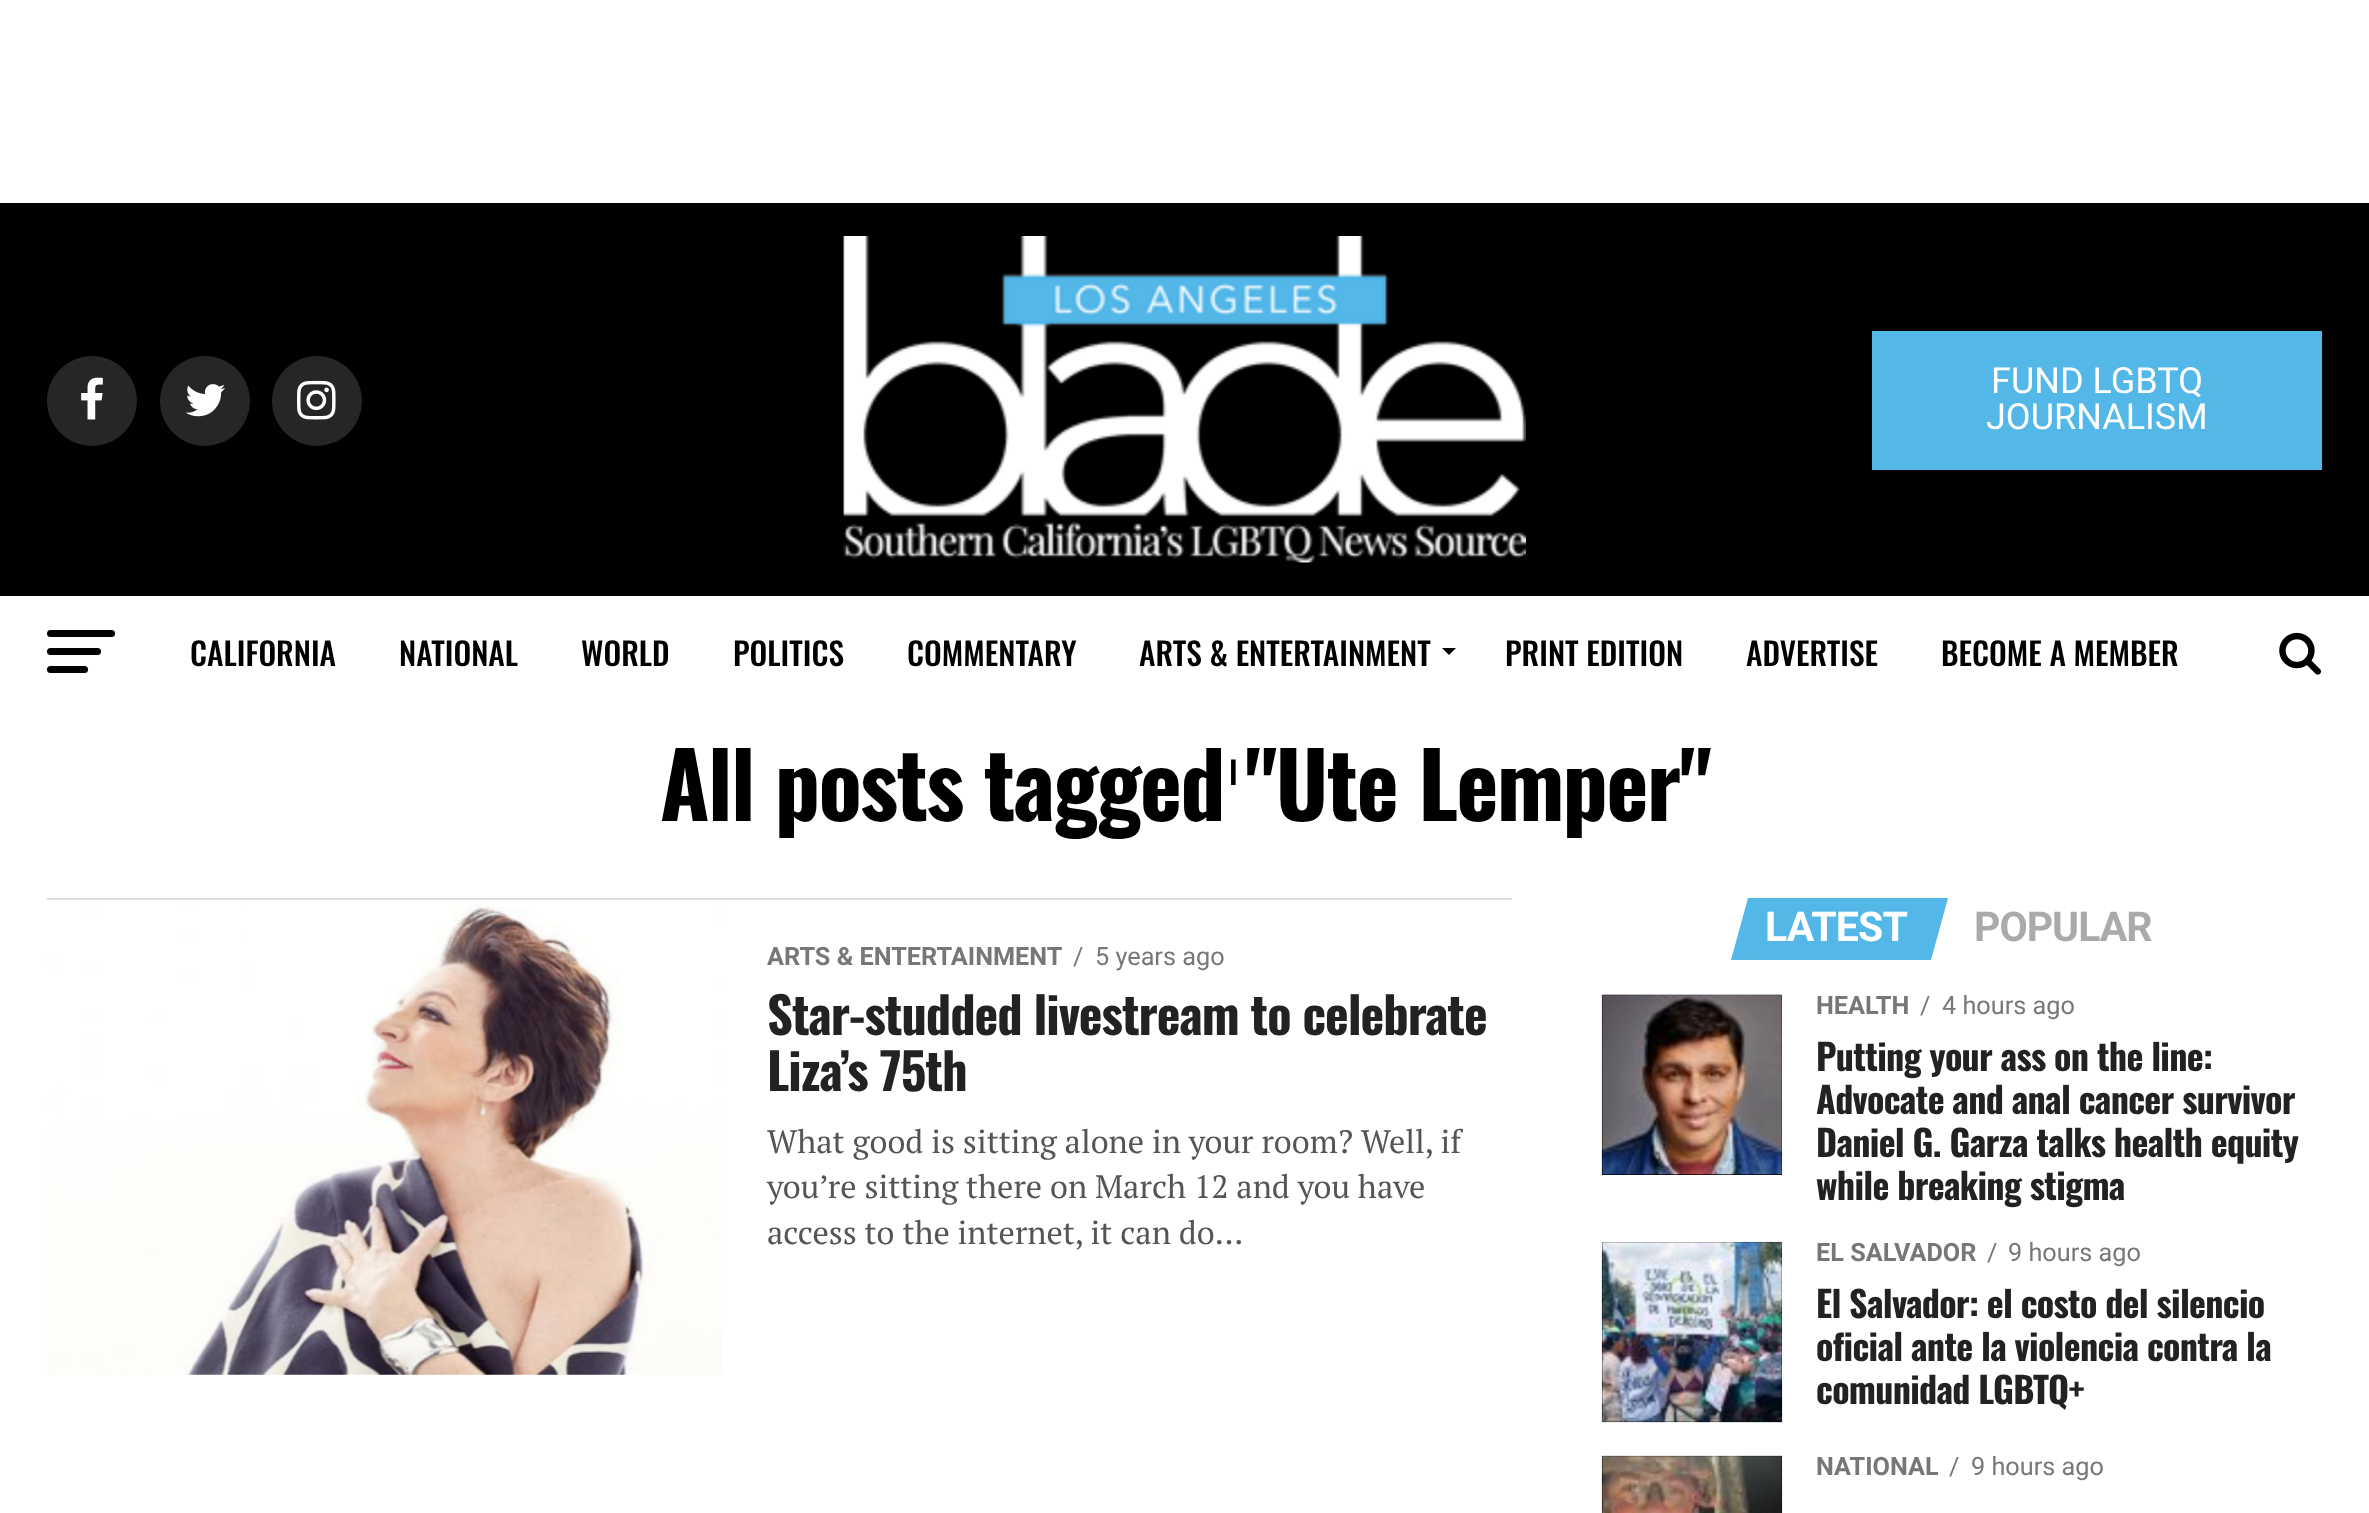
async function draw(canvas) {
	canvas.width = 2369;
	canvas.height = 1513;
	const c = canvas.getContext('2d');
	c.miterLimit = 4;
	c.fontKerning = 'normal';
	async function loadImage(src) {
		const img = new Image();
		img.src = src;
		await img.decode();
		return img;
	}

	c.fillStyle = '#fff';
	c.fillRect(0, 0, 2369, 1513);
	c.fillStyle = '#000';
	c.fillRect(0, 203, 2369, 393);
	c.fillStyle = '#262626';
	c.beginPath();
	c.arc(92, 401, 45, 0, 2 * Math.PI);
	c.fill();
	c.drawImage(await loadImage('img1.png'), 81, 377, 22, 43);
	c.beginPath();
	c.arc(205, 401, 45, 0, 2 * Math.PI);
	c.fill();
	c.drawImage(await loadImage('img2.png'), 185, 384, 40, 33);
	c.beginPath();
	c.arc(317, 401, 45, 0, 2 * Math.PI);
	c.fill();
	c.drawImage(await loadImage('img3.png'), 297, 380, 39, 40);
	c.drawImage(await loadImage('img4.png'), 843, 236, 683, 327);
	c.fillStyle = '#53b7e8';
	c.fillRect(1872, 331, 450, 139);
	c.font = '36px Roboto';
	c.fillStyle = '#fff';
	c.fillText('FUND LGBTQ', 1991, 393);
	c.fillText('JOURNALISM', 1986, 429);
	c.fillStyle = '#000';
	c.beginPath();
	c.roundRect(47, 630, 68, 7, 3.5);
	c.fill();
	c.beginPath();
	c.roundRect(47, 648, 54, 7, 3.5);
	c.fill();
	c.beginPath();
	c.roundRect(47, 666, 41, 7, 3.5);
	c.fill();
	c.font = '500 31.5px Oswald';
	for (const [text, x, y] of [
		['CALIFORNIA', 190, 666],
		['NATIONAL', 399, 666],
		['WORLD', 581, 666],
		['POLITICS', 733, 666],
		['COMMENTARY', 907, 666],
		['ARTS & ENTERTAINMENT', 1139, 666],
	]) {
		c.fillText(text, x, y);
	}
	c.beginPath();
	c.moveTo(1442, 648);
	c.lineTo(1456, 648);
	c.lineTo(1449, 655);
	c.closePath();
	c.fill();
	for (const [text, x, y] of [
		['PRINT EDITION', 1505, 666],
		['ADVERTISE', 1746, 666],
		['BECOME A MEMBER', 1941, 666],
	]) {
		c.fillText(text, x, y);
	}
	c.letterSpacing = '-1.8px';
	c.font = 'bold 90px Oswald';
	c.fillText('All posts tagged "Ute Lemper"', 660, 821);
	c.letterSpacing = '0px';
	c.font = '500 31.5px Oswald';
	c.fillText('I', 1229, 785);
	c.drawImage(await loadImage('img5.png'), 2279, 632, 42, 43);
	c.fillStyle = '#ddd';
	c.fillRect(47, 898, 1465, 2);
	c.drawImage(await loadImage('img6.png'), 47, 900, 675, 475);
	c.font = 'bold 25.25px Roboto';
	c.fillStyle = '#777';
	c.fillText('ARTS & ENTERTAINMENT', 767, 965);
	c.font = '25.25px Roboto';
	c.fillText('/', 1073, 965);
	c.fillText('5 years ago', 1095, 965);
	c.letterSpacing = '-1px';
	c.font = 'bold 50.4px Oswald';
	c.fillStyle = '#222';
	c.fillText('Star-studded livestream to celebrate', 767, 1035);
	c.fillText('Liza’s 75th', 767, 1091);
	c.letterSpacing = '0px';
	c.font = '32.4px PT Serif';
	c.fillStyle = '#555';
	for (const [text, x, y] of [
		['What good is sitting alone in your room? Well, if', 767, 1153],
		['you’re sitting there on March 12 and you have', 767, 1198],
		['access to the internet, it can do...', 767, 1244],
	]) {
		c.fillText(text, x, y);
	}
	c.fillStyle = '#53b7e8';
	c.beginPath();
	c.moveTo(1748, 898);
	c.lineTo(1948, 898);
	c.lineTo(1931, 960);
	c.lineTo(1731, 960);
	c.closePath();
	c.fill();
	c.letterSpacing = '-0.75px';
	c.font = 'bold 41px Roboto';
	c.fillStyle = '#fff';
	c.fillText('LATEST', 1765, 941);
	c.letterSpacing = '-1px';
	c.fillStyle = '#aaa';
	c.fillText('POPULAR', 1974, 941);
	c.fillStyle = '#000';
	c.fillRect(1602, 995, 180, 180);
	c.drawImage(await loadImage('img7.png'), 1601, 994, 182, 181);
	c.letterSpacing = '0px';
	c.font = 'bold 25.25px Roboto';
	c.fillStyle = '#777';
	c.fillText('HEALTH', 1816, 1014);
	c.font = '25.25px Roboto';
	c.fillText('/', 1920, 1014);
	c.fillText('4 hours ago', 1942, 1014);
	c.letterSpacing = '-0.7px';
	c.font = 'bold 36px Oswald';
	c.fillStyle = '#222';
	for (const [text, x, y] of [
		['Putting your ass on the line:', 1816, 1071],
		['Advocate and anal cancer survivor', 1816, 1114],
		['Daniel G. Garza talks health equity', 1816, 1157],
		['while breaking stigma', 1816, 1200],
	]) {
		c.fillText(text, x, y);
	}
	c.fillStyle = '#000';
	c.fillRect(1602, 1242, 180, 180);
	c.drawImage(await loadImage('img8.png'), 1601, 1241, 182, 182);
	c.letterSpacing = '0px';
	c.font = 'bold 25.25px Roboto';
	c.fillStyle = '#777';
	c.fillText('EL SALVADOR', 1816, 1261);
	c.font = '25.25px Roboto';
	c.fillText('/', 1987, 1261);
	c.fillText('9 hours ago', 2008, 1261);
	c.letterSpacing = '-0.7px';
	c.font = 'bold 36px Oswald';
	c.fillStyle = '#222';
	for (const [text, x, y] of [
		['El Salvador: el costo del silencio', 1816, 1318],
		['oficial ante la violencia contra la', 1816, 1361],
		['comunidad LGBTQ+', 1816, 1404],
	]) {
		c.fillText(text, x, y);
	}
	c.fillStyle = '#000';
	c.fillRect(1602, 1456, 180, 57);
	c.drawImage(await loadImage('img9.png'), 1601, 1455, 182, 58);
	c.letterSpacing = '0px';
	c.font = 'bold 25.25px Roboto';
	c.fillStyle = '#777';
	c.fillText('NATIONAL', 1816, 1475);
	c.font = '25.25px Roboto';
	c.fillText('/', 1949, 1475);
	c.fillText('9 hours ago', 1971, 1475);
}

draw(document.querySelector('canvas'));
